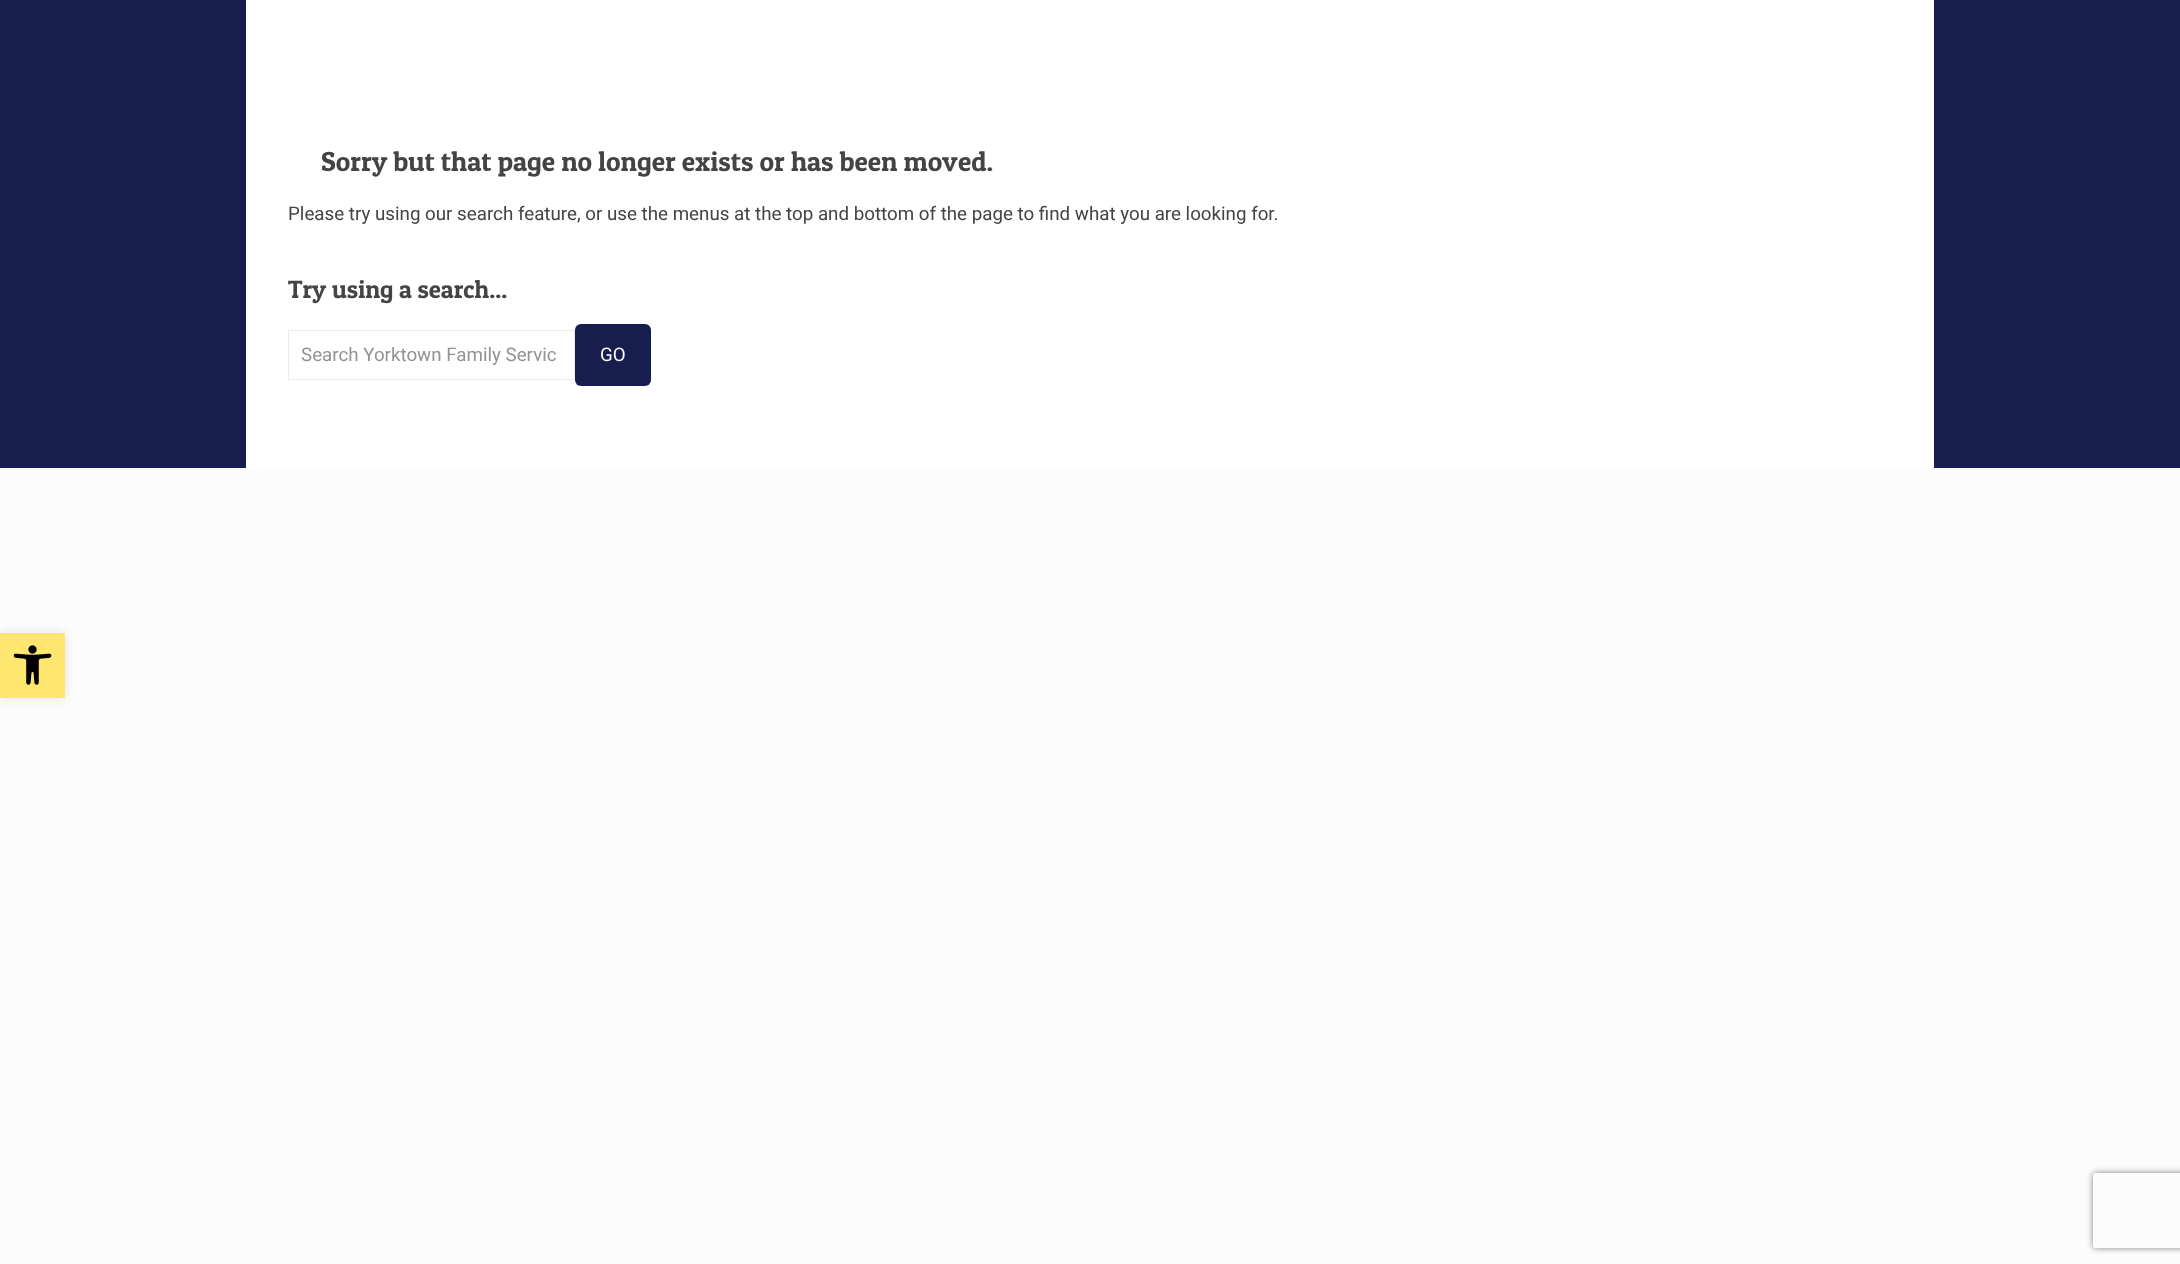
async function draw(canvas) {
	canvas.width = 2180;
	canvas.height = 1264;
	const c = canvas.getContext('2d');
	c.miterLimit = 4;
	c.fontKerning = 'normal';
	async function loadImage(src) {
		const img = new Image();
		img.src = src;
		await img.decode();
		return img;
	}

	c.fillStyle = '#fcfcfc';
	c.fillRect(0, 0, 2180, 1264);
	c.fillStyle = '#171d4c';
	c.fillRect(0, 0, 2180, 468);
	c.fillStyle = '#fff';
	c.fillRect(246, 0, 1688, 468);
	c.font = '27.5px Patua One';
	c.fillStyle = '#444';
	c.fillText('Sorry but that page no longer exists or has been moved.', 321, 171);
	c.font = '18.75px Roboto';
	c.fillText('Please try using our search feature, or use the menus at the top and bottom of the page to find what you are looking for.', 288, 220);
	c.font = '25px Patua One';
	c.fillText('Try using a search...', 288, 298);
	c.strokeStyle = '#ebebeb';
	c.strokeRect(288.5, 330.5, 286, 49);
	c.font = '18.75px Roboto';
	c.fillStyle = '#929292';
	c.fillText('Search Yorktown Family Servic', 301, 361);
	c.fillStyle = '#171d4c';
	c.beginPath();
	c.roundRect(575, 324, 76, 62, 6);
	c.fill();
	c.fillStyle = '#fff';
	c.fillText('GO', 600, 361);
	c.fillStyle = '#0000001a';
	c.filter = 'blur(6px)';
	c.beginPath();
	c.rect(0, 633, 65, 65);
	c.fill();
	c.filter = 'none';
	c.fillStyle = '#ffe670';
	c.fillRect(0, 633, 65, 65);
	c.drawImage(await loadImage('img1.png'), 13, 645, 39, 40);
	c.save();
	c.beginPath();
	c.moveTo(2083, 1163);
	c.lineTo(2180, 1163);
	c.lineTo(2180, 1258);
	c.lineTo(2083, 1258);
	c.closePath();
	c.moveTo(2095.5, 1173);
	c.lineTo(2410.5, 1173);
	c.bezierCurveTo(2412, 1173, 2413, 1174, 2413, 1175.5);
	c.lineTo(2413, 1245.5);
	c.bezierCurveTo(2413, 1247, 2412, 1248, 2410.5, 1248);
	c.lineTo(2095.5, 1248);
	c.bezierCurveTo(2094, 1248, 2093, 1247, 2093, 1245.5);
	c.lineTo(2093, 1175.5);
	c.bezierCurveTo(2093, 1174, 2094, 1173, 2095.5, 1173);
	c.closePath();
	c.clip('evenodd');
	c.fillStyle = '#808080';
	c.filter = 'blur(3px)';
	c.beginPath();
	c.roundRect(2093, 1173, 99, 75, 2.5);
	c.fill();
	c.filter = 'none';
	c.restore();
}

draw(document.querySelector('canvas'));
